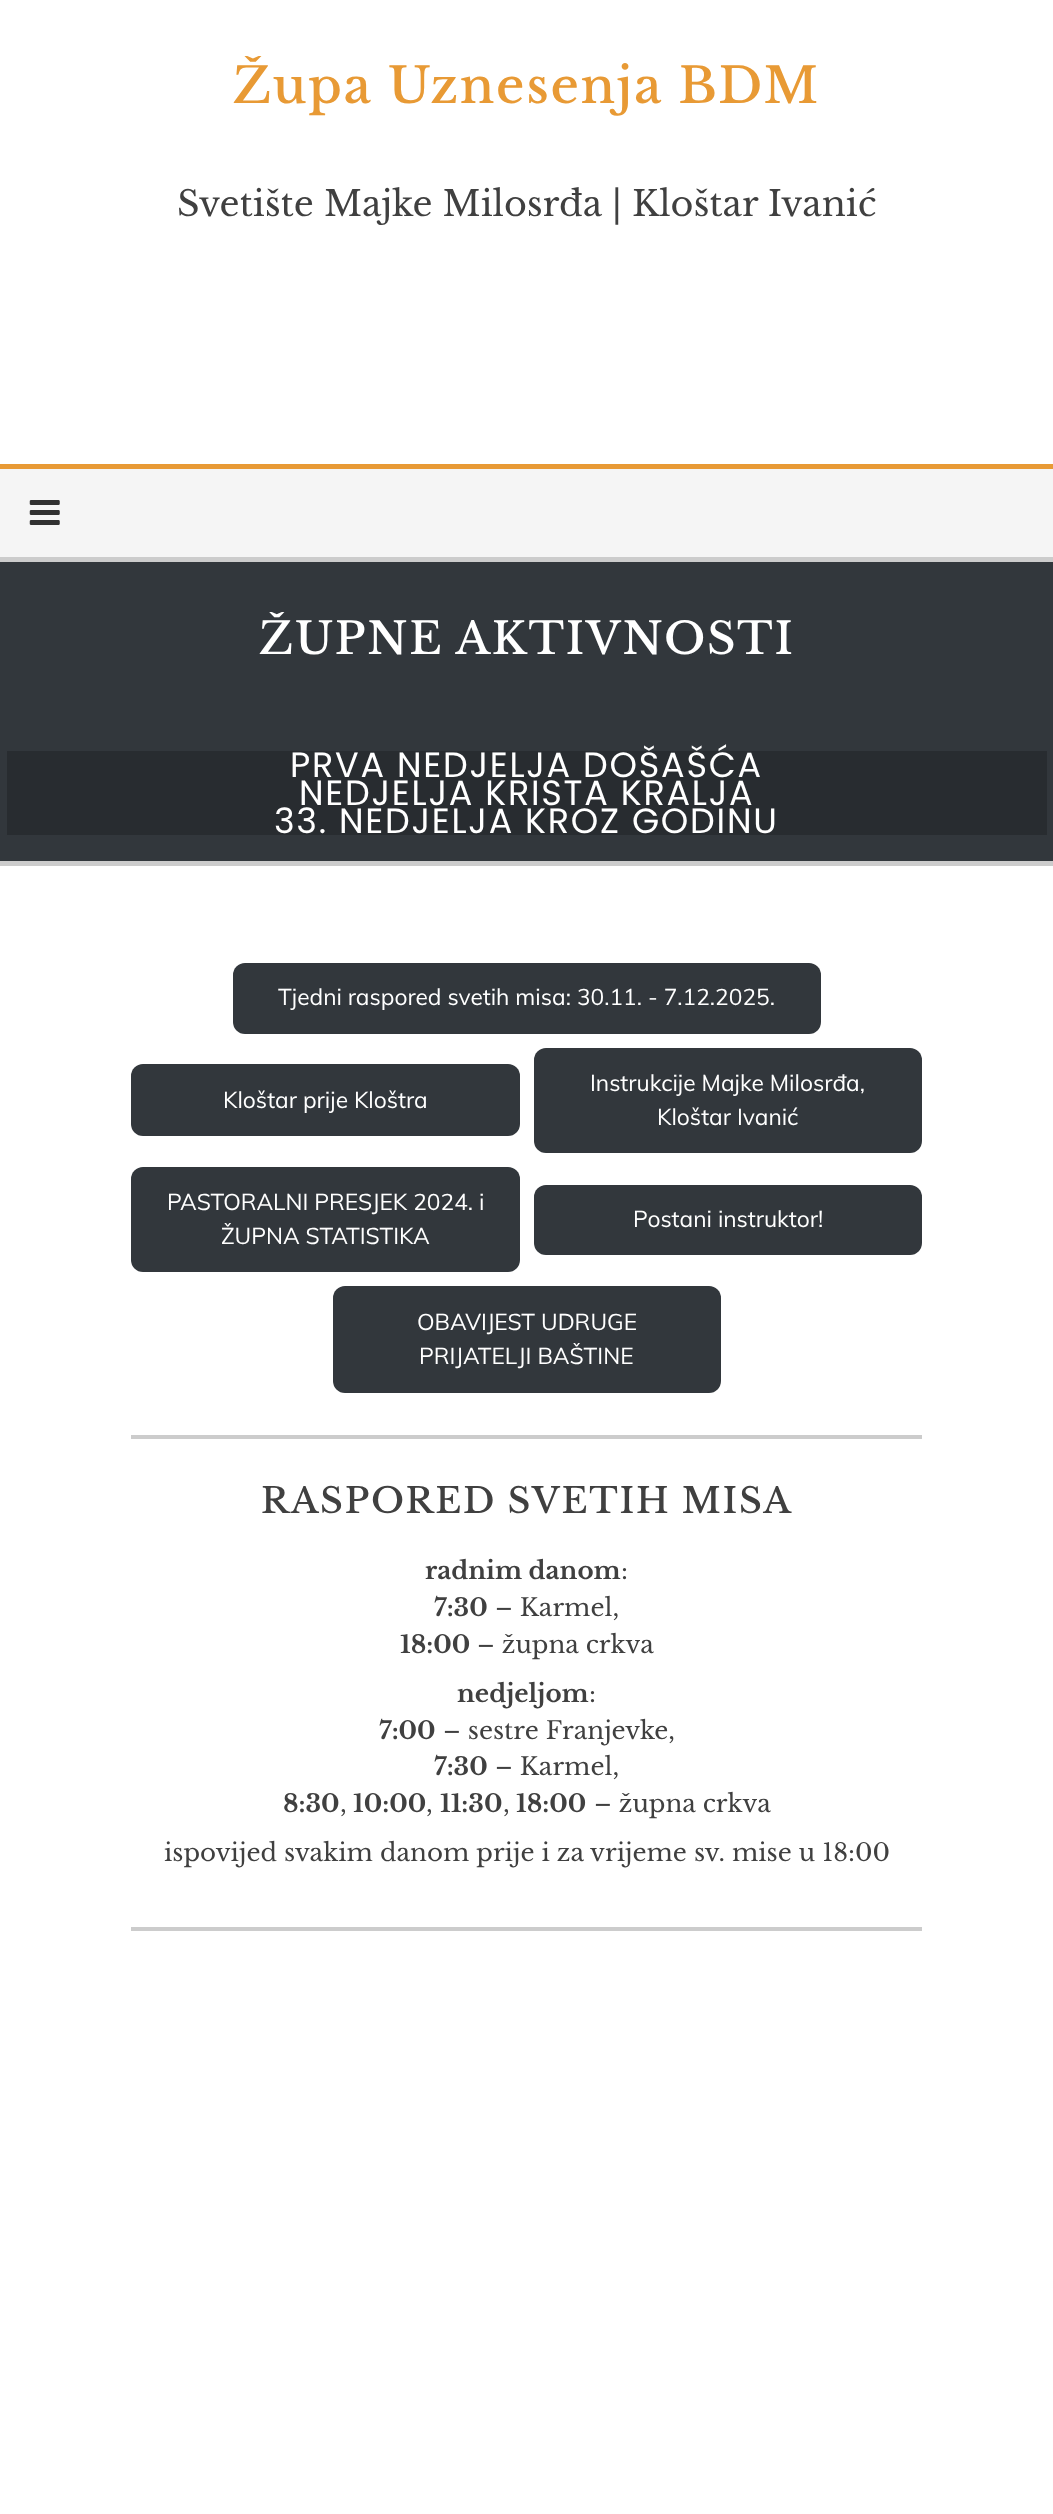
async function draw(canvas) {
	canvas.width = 1053;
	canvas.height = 2514;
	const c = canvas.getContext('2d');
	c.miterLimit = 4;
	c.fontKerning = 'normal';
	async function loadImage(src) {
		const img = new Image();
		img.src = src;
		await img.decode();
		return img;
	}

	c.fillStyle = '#fff';
	c.fillRect(0, 0, 1053, 2514);
	c.letterSpacing = '1.75px';
	c.font = '500 49px Libre Baskerville';
	c.fillStyle = '#e89a35';
	c.fillText('Župa Uznesenja BDM', 233, 103);
	c.letterSpacing = '0px';
	c.font = '35px Libre Baskerville';
	c.fillStyle = '#404040';
	c.fillText('Svetište Majke Milosrđa | Kloštar Ivanić', 177, 216);
	for (const [x, y, w, h, color] of [
		[0, 469, 1053, 88, '#f5f5f5'],
		[0, 464, 1053, 5, '#e89a35'],
		[0, 557, 1053, 5, '#ccc'],
	]) {
		c.fillStyle = color;
		c.fillRect(x, y, w, h);
	}
	c.drawImage(await loadImage('img1.png'), 29, 500, 31, 25);
	c.fillStyle = '#32373c';
	c.fillRect(0, 562, 1053, 299);
	c.fillStyle = '#ccc';
	c.fillRect(0, 861, 1053, 5);
	c.letterSpacing = '1.75px';
	c.font = '500 43.75px Libre Baskerville';
	c.fillStyle = '#fff';
	c.fillText('ŽUPNE AKTIVNOSTI', 259, 654);
	c.fillStyle = '#282c30';
	c.fillRect(7, 751, 1040, 84);
	c.font = '35px Poppins';
	c.fillStyle = '#fff';
	for (const [text, x, y] of [
		['PRVA NEDJELJA DOŠAŠĆA', 290, 777],
		['NEDJELJA KRISTA KRALJA', 299, 805],
		['33. NEDJELJA KROZ GODINU', 274, 833],
	]) {
		c.fillText(text, x, y);
	}
	c.fillStyle = '#32373c';
	c.beginPath();
	c.roundRect(233, 963, 588, 71, 12);
	c.fill();
	c.letterSpacing = '0px';
	c.font = '22.75px Muli';
	c.fillStyle = '#fff';
	c.fillText('Tjedni raspored svetih misa: 30.11. - 7.12.2025.', 278, 1005);
	c.fillStyle = '#32373c';
	c.beginPath();
	c.roundRect(131, 1064, 389, 72, 12);
	c.fill();
	c.fillStyle = '#fff';
	c.fillText('Kloštar prije Kloštra', 223, 1108);
	c.fillStyle = '#32373c';
	c.beginPath();
	c.roundRect(534, 1048, 388, 105, 12);
	c.fill();
	c.fillStyle = '#fff';
	c.fillText('Instrukcije Majke Milosrđa,', 590, 1091);
	c.fillText('Kloštar Ivanić', 657, 1125);
	c.fillStyle = '#32373c';
	c.beginPath();
	c.roundRect(131, 1167, 389, 105, 12);
	c.fill();
	c.fillStyle = '#fff';
	c.fillText('PASTORALNI PRESJEK 2024. i', 167, 1210);
	c.fillText('ŽUPNA STATISTIKA', 221, 1244);
	c.fillStyle = '#32373c';
	c.beginPath();
	c.roundRect(534, 1185, 388, 70, 12);
	c.fill();
	c.fillStyle = '#fff';
	c.fillText('Postani instruktor!', 633, 1227);
	c.fillStyle = '#32373c';
	c.beginPath();
	c.roundRect(333, 1286, 388, 107, 12);
	c.fill();
	c.fillStyle = '#fff';
	c.fillText('OBAVIJEST UDRUGE', 417, 1330);
	c.fillText('PRIJATELJI BAŠTINE', 419, 1364);
	c.fillStyle = '#ccc';
	c.fillRect(131, 1435, 791, 4);
	c.letterSpacing = '1.75px';
	c.font = '500 35px Libre Baskerville';
	c.fillStyle = '#404040';
	c.fillText('RASPORED SVETIH MISA', 261, 1513);
	c.letterSpacing = '0px';
	c.font = 'bold 24.5px Libre Baskerville';
	c.fillText('radnim danom', 425, 1579);
	c.font = '24.5px Libre Baskerville';
	c.fillText(':', 621, 1579);
	c.font = 'bold 24.5px Libre Baskerville';
	c.fillText('7:30', 434, 1616);
	c.font = '24.5px Libre Baskerville';
	c.fillText('– Karmel,', 495, 1616);
	c.font = 'bold 24.5px Libre Baskerville';
	c.fillText('18:00', 400, 1653);
	c.font = '24.5px Libre Baskerville';
	c.fillText('– župna crkva', 477, 1653);
	c.font = 'bold 24.5px Libre Baskerville';
	c.fillText('nedjeljom', 457, 1702);
	c.font = '24.5px Libre Baskerville';
	c.fillText(':', 589, 1702);
	c.font = 'bold 24.5px Libre Baskerville';
	c.fillText('7:00', 379, 1739);
	c.font = '24.5px Libre Baskerville';
	c.fillText('– sestre Franjevke,', 443, 1739);
	c.font = 'bold 24.5px Libre Baskerville';
	c.fillText('7:30', 434, 1775);
	c.font = '24.5px Libre Baskerville';
	c.fillText('– Karmel,', 495, 1775);
	c.font = 'bold 24.5px Libre Baskerville';
	c.fillText('8:30', 283, 1812);
	c.font = '24.5px Libre Baskerville';
	c.fillText(',', 340, 1812);
	c.font = 'bold 24.5px Libre Baskerville';
	c.fillText('10:00', 353, 1812);
	c.font = '24.5px Libre Baskerville';
	c.fillText(',', 426, 1812);
	c.font = 'bold 24.5px Libre Baskerville';
	c.fillText('11:30', 440, 1812);
	c.font = '24.5px Libre Baskerville';
	c.fillText(',', 503, 1812);
	c.font = 'bold 24.5px Libre Baskerville';
	c.fillText('18:00', 516, 1812);
	c.font = '24.5px Libre Baskerville';
	c.fillText('– župna crkva', 594, 1812);
	c.fillText('ispovijed svakim danom prije i za vrijeme sv. mise u 18:00', 164, 1861);
	c.fillStyle = '#ccc';
	c.fillRect(131, 1927, 791, 4);
}

draw(document.querySelector('canvas'));
